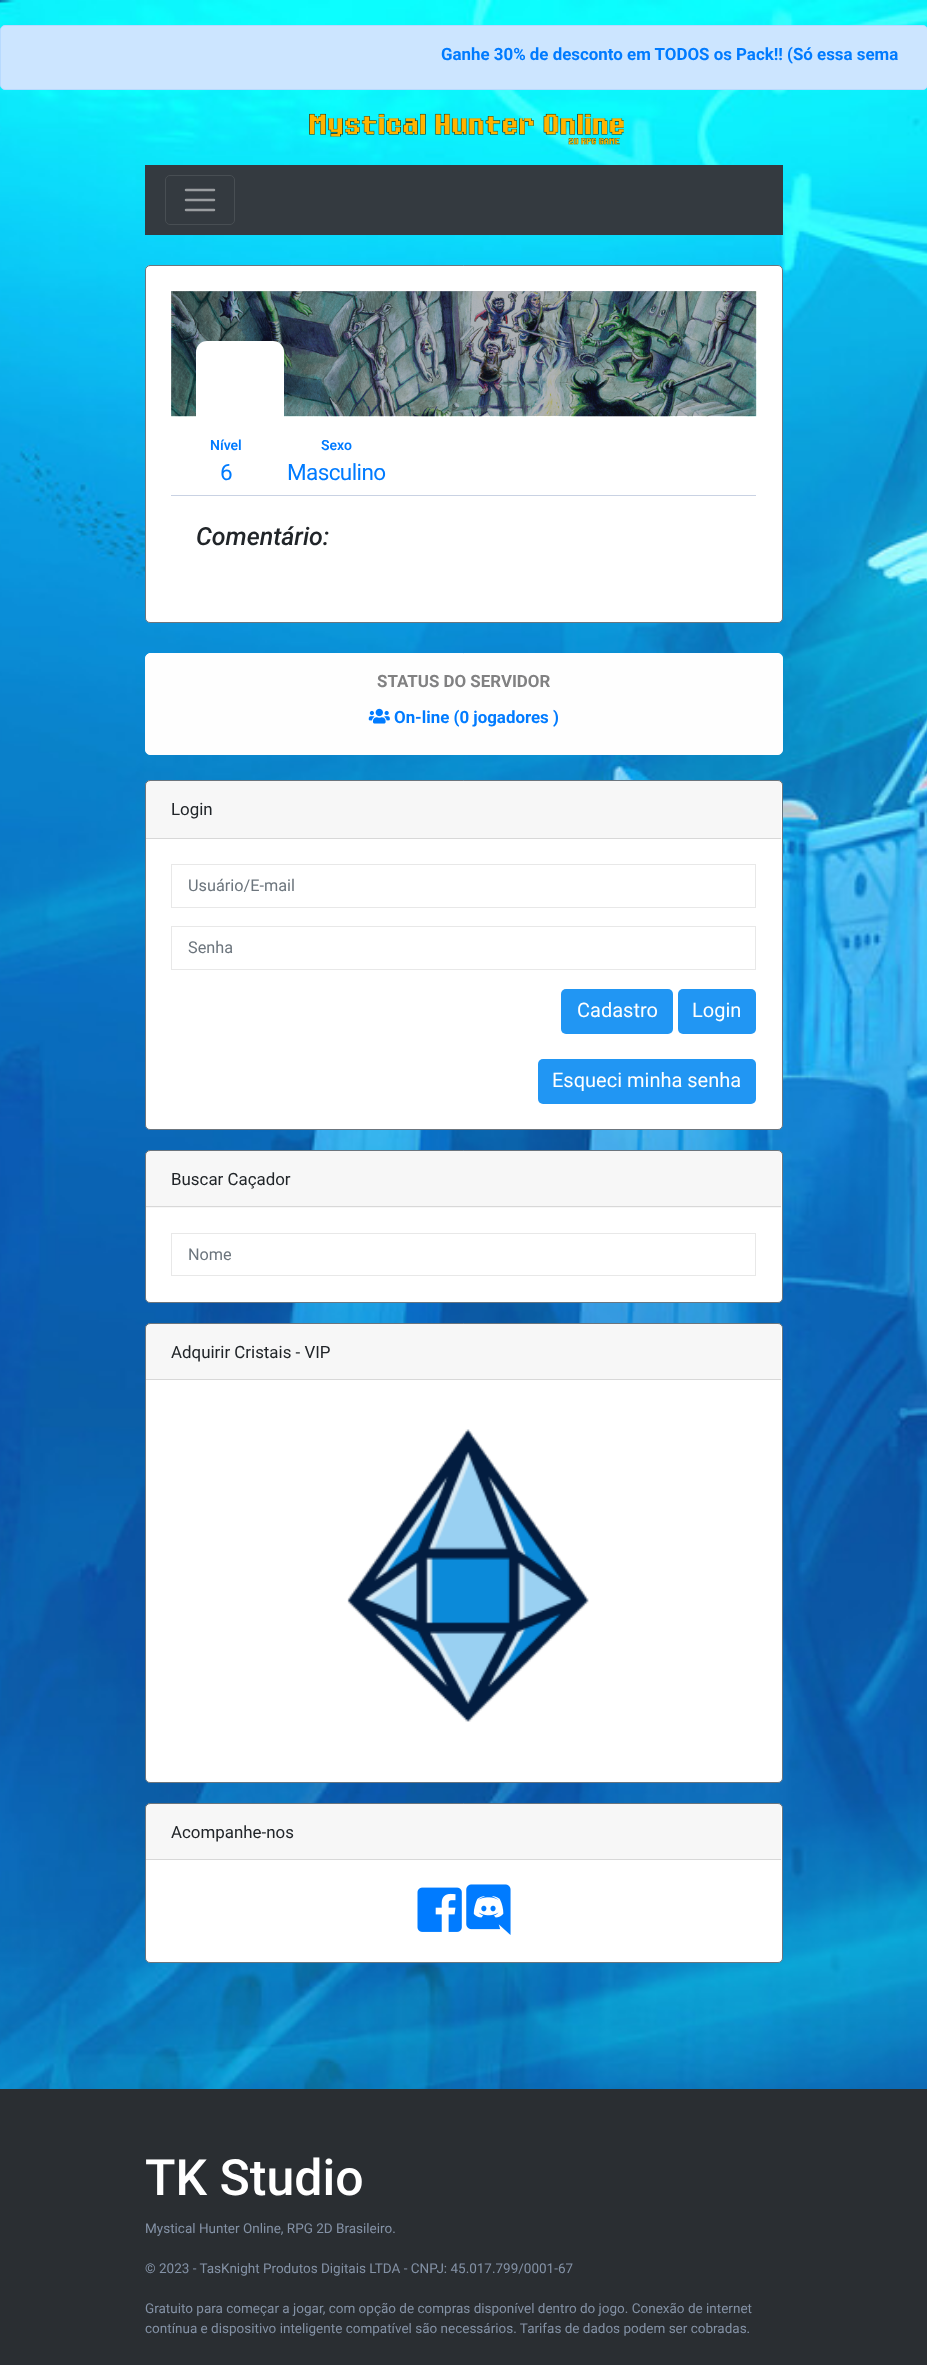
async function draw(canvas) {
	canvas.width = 927;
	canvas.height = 2365;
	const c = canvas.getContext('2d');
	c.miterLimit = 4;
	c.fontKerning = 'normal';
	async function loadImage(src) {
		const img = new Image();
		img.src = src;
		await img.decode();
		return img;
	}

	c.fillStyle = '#fff';
	c.fillRect(0, 0, 927, 2365);
	c.drawImage(await loadImage('img1.png'), 0, 0, 927, 2089);
	c.fillStyle = '#cce5ff';
	c.beginPath();
	c.roundRect(0.5, 25.5, 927, 64, 4.5);
	c.fill();
	c.strokeStyle = '#b8daff';
	c.stroke();
	c.font = 'bold 16.9px Roboto';
	c.fillStyle = '#007bff';
	c.fillText('Ganhe 30% de desconto em TODOS os Pack!! (Só essa sema', 441, 60);
	c.drawImage(await loadImage('img2.png'), 309, 113, 315, 32);
	c.fillStyle = '#343a40';
	c.fillRect(145, 165, 638, 70);
	c.beginPath();
	c.roundRect(165.5, 175.5, 69, 49, 4.5);
	c.strokeStyle = '#484e53';
	c.stroke();
	c.beginPath();
	c.moveTo(186, 190);
	c.lineTo(214, 190);
	c.moveTo(186, 200);
	c.lineTo(214, 200);
	c.moveTo(186, 210);
	c.lineTo(214, 210);
	c.strokeStyle = '#9a9da0';
	c.lineWidth = 2.5;
	c.lineCap = 'round';
	c.stroke();
	c.fillStyle = '#fff';
	c.beginPath();
	c.roundRect(145.5, 265.5, 637, 357, 4.5);
	c.fill();
	c.strokeStyle = '#6c757d';
	c.lineWidth = 1;
	c.stroke();
	c.drawImage(await loadImage('img3.png'), 171, 291, 586, 126);
	c.fillStyle = '#21283759';
	c.fillRect(171, 291, 585, 125);
	c.fillStyle = '#fff';
	c.beginPath();
	c.roundRect(196, 341, 88, 88, 11);
	c.fill();
	c.fillStyle = '#c9d2e3';
	c.fillRect(171, 495, 585, 1);
	c.font = '600 14px Roboto';
	c.fillStyle = '#007bff';
	c.fillText('Nível', 210, 450);
	c.letterSpacing = '-0.6px';
	c.font = '22.5px Roboto';
	c.fillText('6', 220, 480);
	c.letterSpacing = '0px';
	c.font = '600 14px Roboto';
	c.fillText('Sexo', 321, 450);
	c.letterSpacing = '-0.6px';
	c.font = '22.5px Roboto';
	c.fillText('Masculino', 287, 480);
	c.letterSpacing = '0px';
	c.font = 'italic 500 25px Roboto';
	c.fillStyle = '#212529';
	c.fillText('Comentário:', 196, 545);
	c.fillStyle = '#fefefe';
	c.beginPath();
	c.roundRect(145.5, 653.5, 637, 101, 4.5);
	c.fill();
	c.strokeStyle = '#fdfdfe';
	c.stroke();
	c.font = 'bold 16.9px Roboto';
	c.fillStyle = '#818182';
	c.fillText('STATUS DO SERVIDOR', 377, 687);
	c.drawImage(await loadImage('img4.png'), 368, 708, 22, 16);
	c.fillStyle = '#007bff';
	c.fillText('On-line (0 jogadores )', 394, 723);
	c.fillStyle = '#fff';
	c.beginPath();
	c.roundRect(145.5, 780.5, 637, 349, 4.5);
	c.fill();
	c.strokeStyle = '#6c757d';
	c.stroke();
	c.fillStyle = '#00000008';
	c.fillRect(146, 781, 635, 57);
	c.fillStyle = '#d8d8d8';
	c.fillRect(146, 838, 635, 1);
	c.font = '16.9px Roboto';
	c.fillStyle = '#212529';
	c.fillText('Login', 171, 815);
	c.strokeStyle = '#e8e8e8';
	c.strokeRect(171.5, 864.5, 584, 43);
	c.font = '16.25px Roboto';
	c.fillStyle = '#6c757d';
	c.fillText('Usuário/E-mail', 188, 891);
	c.strokeRect(171.5, 926.5, 584, 43);
	c.fillText('Senha', 188, 953);
	c.fillStyle = '#2196f3';
	c.beginPath();
	c.roundRect(561, 989, 112, 45, 5);
	c.fill();
	c.font = '20px Roboto';
	c.fillStyle = '#fff';
	c.fillText('Cadastro', 577, 1017);
	c.fillStyle = '#2196f3';
	c.beginPath();
	c.roundRect(678, 989, 78, 45, 5);
	c.fill();
	c.fillStyle = '#fff';
	c.fillText('Login', 692, 1017);
	c.fillStyle = '#2196f3';
	c.beginPath();
	c.roundRect(538, 1059, 218, 45, 5);
	c.fill();
	c.fillStyle = '#fff';
	c.fillText('Esqueci minha senha', 552, 1087);
	c.beginPath();
	c.roundRect(145.5, 1150.5, 637, 152, 4.5);
	c.fill();
	c.strokeStyle = '#6c757d';
	c.stroke();
	c.fillStyle = '#00000008';
	c.fillRect(146, 1151, 635, 57);
	c.fillStyle = '#d8d8d8';
	c.fillRect(146, 1206, 635, 1);
	c.font = '16.9px Roboto';
	c.fillStyle = '#212529';
	c.fillText('Buscar Caçador', 171, 1185);
	c.strokeStyle = '#e8e8e8';
	c.strokeRect(171.5, 1233.5, 584, 42);
	c.font = '16.25px Roboto';
	c.fillStyle = '#6c757d';
	c.fillText('Nome', 188, 1260);
	c.fillStyle = '#fff';
	c.beginPath();
	c.roundRect(145.5, 1323.5, 637, 459, 4.5);
	c.fill();
	c.strokeStyle = '#6c757d';
	c.stroke();
	c.fillStyle = '#00000008';
	c.fillRect(146, 1324, 635, 55);
	c.fillStyle = '#d8d8d8';
	c.fillRect(146, 1379, 635, 1);
	c.font = '16.9px Roboto';
	c.fillStyle = '#212529';
	c.fillText('Adquirir Cristais - VIP', 171, 1358);
	c.drawImage(await loadImage('img5.png'), 347, 1429, 242, 293);
	c.fillStyle = '#fff';
	c.beginPath();
	c.roundRect(145.5, 1803.5, 637, 159, 4.5);
	c.fill();
	c.stroke();
	c.fillStyle = '#00000008';
	c.fillRect(146, 1804, 635, 55);
	c.fillStyle = '#d8d8d8';
	c.fillRect(146, 1859, 635, 1);
	c.fillStyle = '#212529';
	c.fillText('Acompanhe-nos', 171, 1838);
	c.drawImage(await loadImage('img6.png'), 417, 1887, 45, 45);
	c.drawImage(await loadImage('img7.png'), 466, 1884, 45, 51);
	c.fillStyle = '#2a2e32';
	c.fillRect(0, 2089, 927, 276);
	c.font = '500 50px Roboto';
	c.fillStyle = '#fff';
	c.fillText('TK Studio', 145, 2195);
	c.font = '13.5px Roboto';
	c.fillStyle = '#8492a6';
	for (const [text, x, y] of [
		['Mystical Hunter Online, RPG 2D Brasileiro.', 145, 2233],
		['© 2023 - TasKnight Produtos Digitais LTDA - CNPJ: 45.017.799/0001-67', 145, 2273],
		['Gratuito para começar a jogar, com opção de compras disponível dentro do jogo. Conexão de internet', 145, 2313],
		['contínua e dispositivo inteligente compatível são necessários. Tarifas de dados podem ser cobradas.', 145, 2333],
	]) {
		c.fillText(text, x, y);
	}
}

draw(document.querySelector('canvas'));
